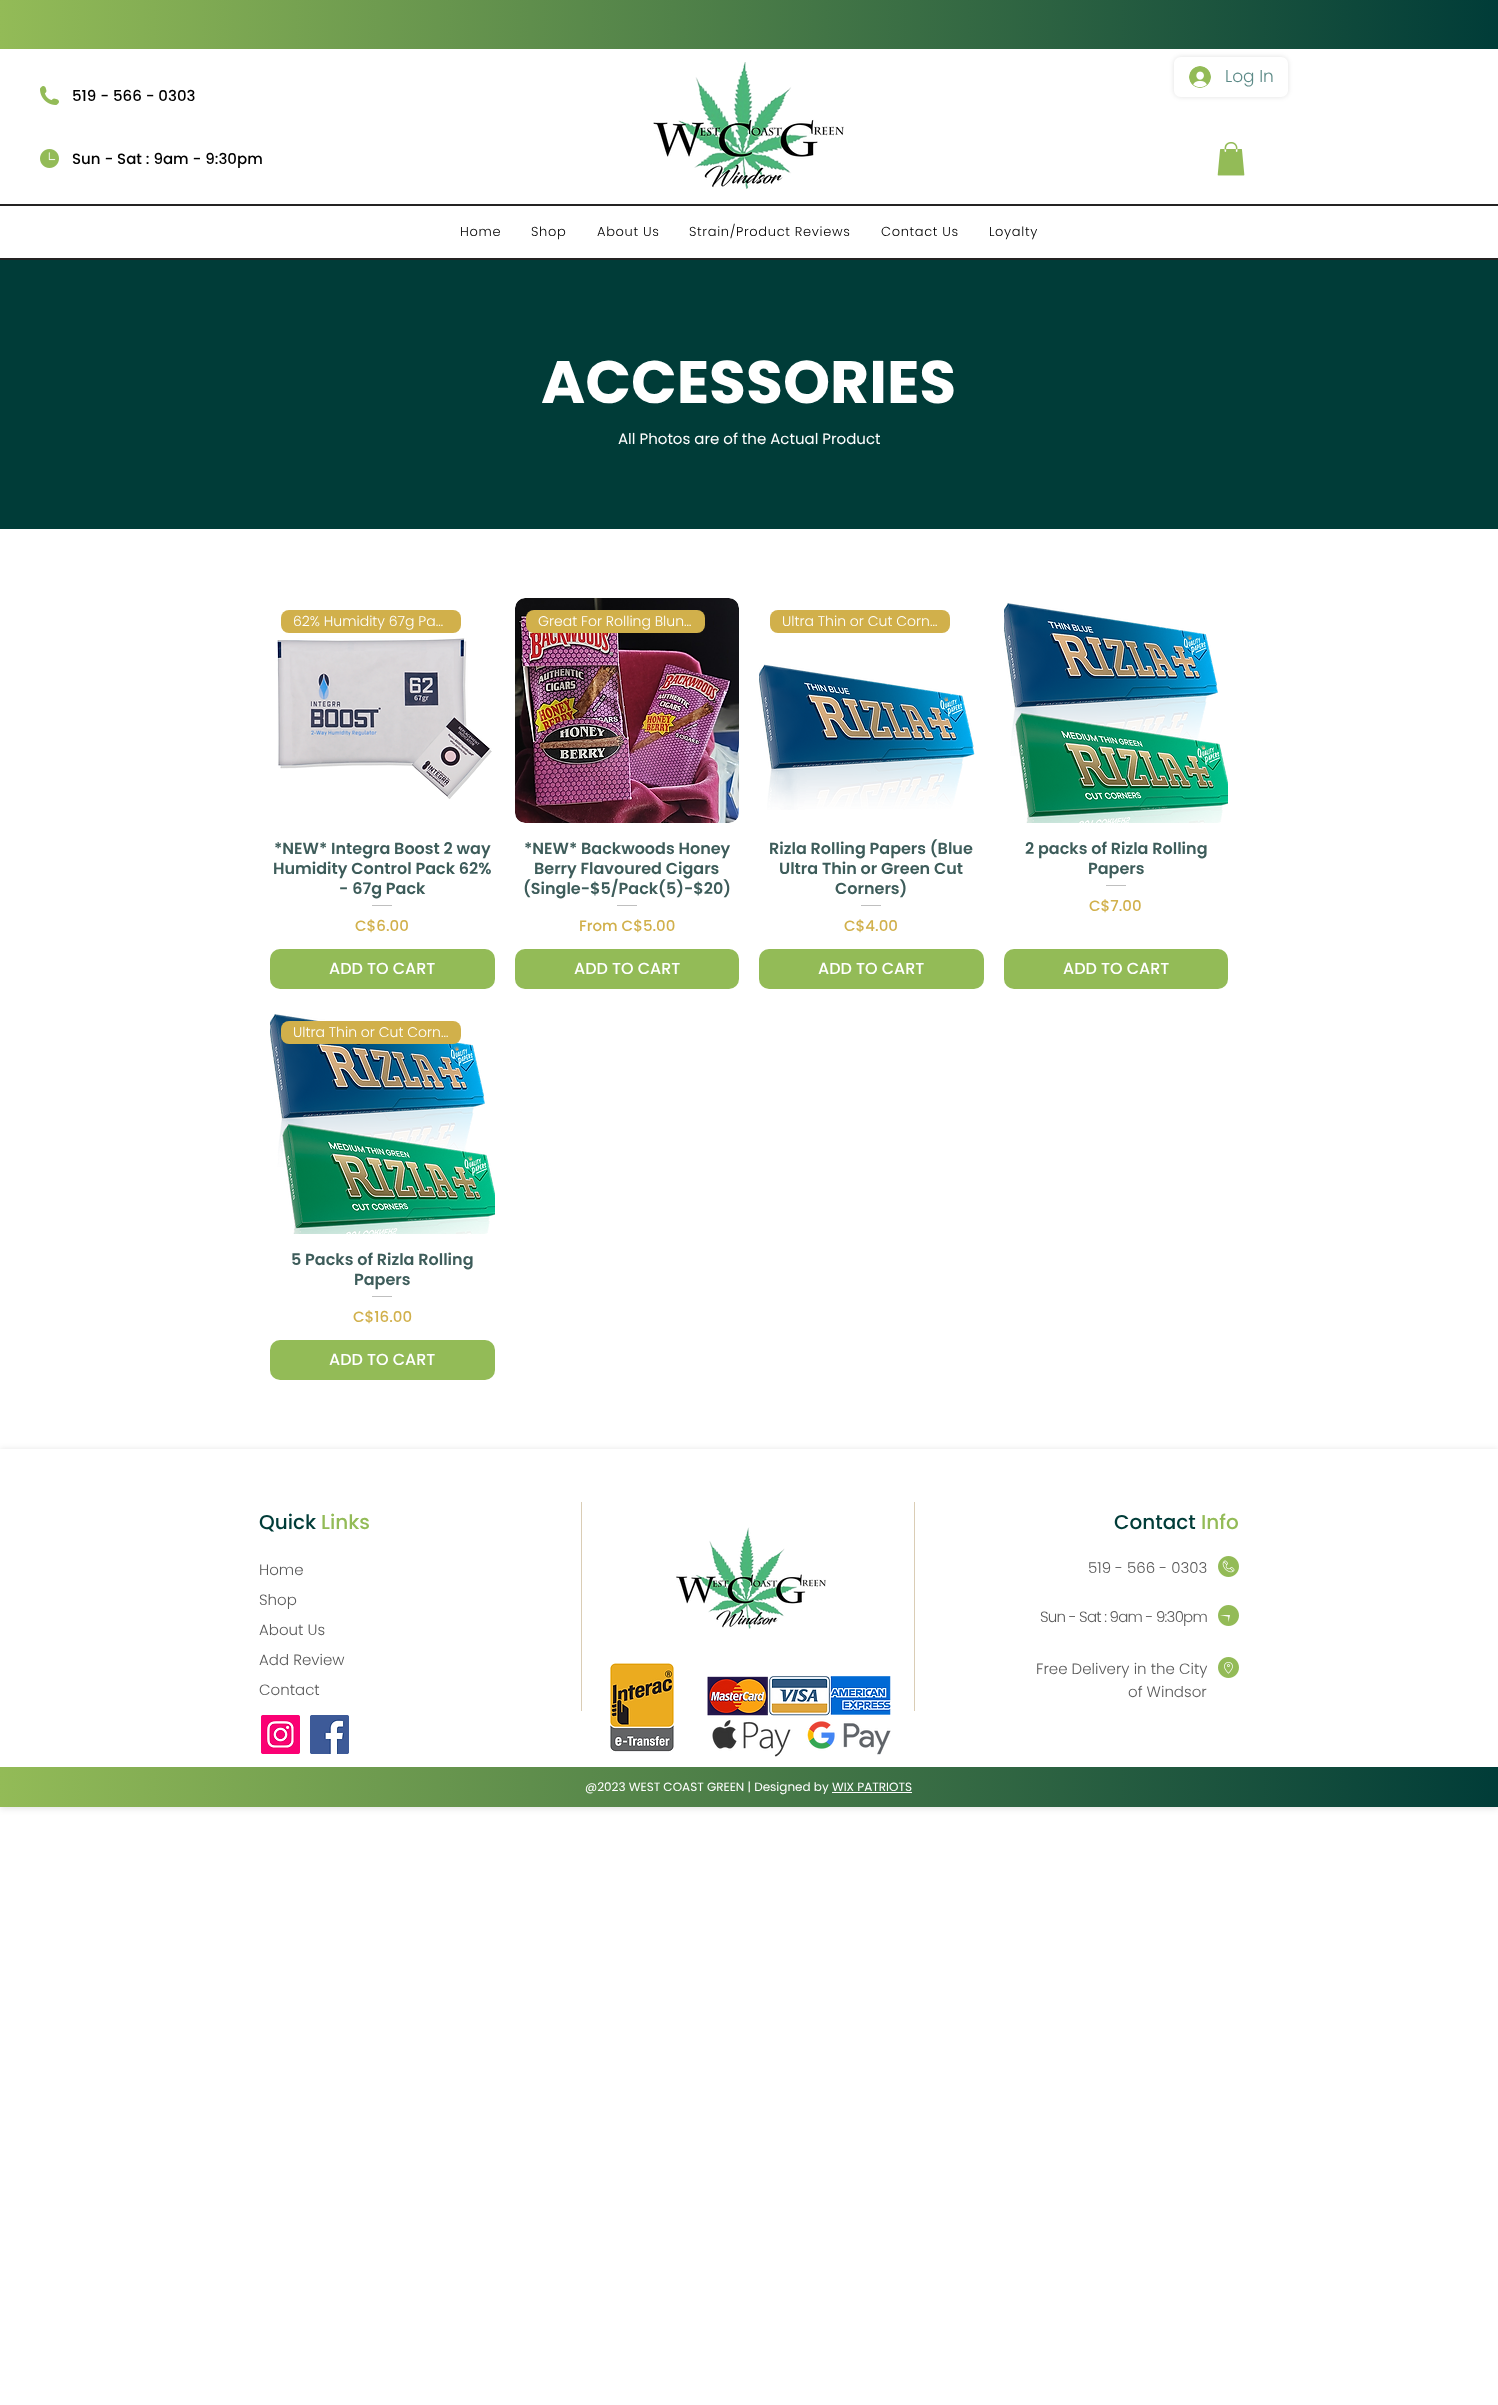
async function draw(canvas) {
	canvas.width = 1498;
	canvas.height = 2405;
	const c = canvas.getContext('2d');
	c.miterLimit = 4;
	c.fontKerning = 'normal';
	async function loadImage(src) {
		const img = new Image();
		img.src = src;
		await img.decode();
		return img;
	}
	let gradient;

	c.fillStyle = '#fff';
	c.fillRect(0, 0, 1498, 2405);
	gradient = c.createLinearGradient(0, 25, 1498, 24);
	gradient.addColorStop(0, '#93bb57');
	gradient.addColorStop(1, '#003c38');
	c.fillStyle = gradient;
	c.fillRect(0, 0, 1498, 49);
	c.drawImage(await loadImage('img1.png'), 653, 62, 191, 127);
	c.save();
	c.beginPath();
	c.moveTo(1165, 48);
	c.lineTo(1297, 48);
	c.lineTo(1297, 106);
	c.lineTo(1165, 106);
	c.closePath();
	c.moveTo(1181, 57);
	c.lineTo(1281, 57);
	c.bezierCurveTo(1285, 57, 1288, 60, 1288, 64);
	c.lineTo(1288, 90);
	c.bezierCurveTo(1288, 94, 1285, 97, 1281, 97);
	c.lineTo(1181, 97);
	c.bezierCurveTo(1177, 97, 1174, 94, 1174, 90);
	c.lineTo(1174, 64);
	c.bezierCurveTo(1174, 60, 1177, 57, 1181, 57);
	c.closePath();
	c.clip('evenodd');
	c.fillStyle = '#0000001f';
	c.filter = 'blur(2.5px)';
	c.beginPath();
	c.roundRect(1174, 57, 114, 40, 7);
	c.fill();
	c.filter = 'none';
	c.restore();
	c.drawImage(await loadImage('img2.png'), 1189, 66, 22, 22);
	c.font = '300 17px Poppins';
	c.fillStyle = '#5c8a87';
	c.fillText('Log In', 1225, 82);
	c.drawImage(await loadImage('img3.png'), 1217, 142, 28, 34);
	c.drawImage(await loadImage('img4.png'), 40, 86, 19, 19);
	c.font = '500 15px Poppins';
	c.fillStyle = '#000';
	c.fillText('519 - 566 - 0303', 72, 101);
	c.drawImage(await loadImage('img5.png'), 40, 149, 19, 19);
	c.fillText('Sun - Sat : 9am - 9:30pm', 72, 164);
	c.fillStyle = '#242323';
	c.fillRect(0, 204, 1498, 2);
	c.letterSpacing = '0.65px';
	c.font = '300 13px Poppins';
	c.fillStyle = '#000';
	for (const [text, x, y] of [
		['Home', 460, 236],
		['Shop', 531, 236],
		['About Us', 597, 236],
		['Strain/Product Reviews', 689, 236],
		['Contact Us', 881, 236],
		['Loyalty', 989, 236],
	]) {
		c.fillText(text, x, y);
	}
	c.fillStyle = '#242323';
	c.fillRect(0, 258, 1498, 2);
	c.fillStyle = '#003c38';
	c.fillRect(0, 260, 1498, 269);
	c.letterSpacing = '0px';
	c.font = 'bold 60px Poppins';
	c.fillStyle = '#fff';
	c.fillText('ACCESSORIES', 541, 403);
	c.font = '15px Poppins';
	c.fillText('All Photos are of the Actual Product', 618, 444);
	c.fillStyle = '#d1b04b';
	c.beginPath();
	c.roundRect(281, 610, 180, 23, 8);
	c.fill();
	c.font = '300 14px Poppins';
	c.fillStyle = '#fff';
	c.fillText('62% Humidity 67g Pa…', 293, 626);
	c.drawImage(await loadImage('img6.png'), 277, 638, 215, 161);
	c.font = '600 16px Poppins';
	c.fillStyle = '#3d5c5a';
	for (const [text, x, y] of [
		['*NEW* Integra Boost 2 way', 274, 854],
		['Humidity Control Pack 62%', 273, 874],
		['- 67g Pack', 339, 894],
	]) {
		c.fillText(text, x, y);
	}
	c.fillStyle = '#bfbfbf';
	c.fillRect(372, 905, 20, 1);
	c.font = '500 15px Poppins';
	c.fillStyle = '#d1b04b';
	c.fillText('C$6.00', 355, 931);
	c.fillStyle = '#93bb57';
	c.beginPath();
	c.roundRect(270, 949, 225, 40, 10);
	c.fill();
	c.font = '500 16px Poppins';
	c.fillStyle = '#fff';
	c.fillText('ADD TO CART', 329, 974);
	c.drawImage(await loadImage('img7.png'), 515, 598, 224, 225);
	c.fillStyle = '#d1b04b';
	c.beginPath();
	c.roundRect(526, 610, 179, 23, 8);
	c.fill();
	c.font = '300 14px Poppins';
	c.fillStyle = '#fff';
	c.fillText('Great For Rolling Blun…', 538, 626);
	c.font = '600 16px Poppins';
	c.fillStyle = '#3d5c5a';
	for (const [text, x, y] of [
		['*NEW* Backwoods Honey', 524, 854],
		['Berry Flavoured Cigars', 534, 874],
		['(Single-$5/Pack(5)-$20)', 523, 894],
	]) {
		c.fillText(text, x, y);
	}
	c.fillStyle = '#bfbfbf';
	c.fillRect(617, 905, 20, 1);
	c.font = '500 15px Poppins';
	c.fillStyle = '#d1b04b';
	c.fillText('From C$5.00', 579, 931);
	c.fillStyle = '#93bb57';
	c.beginPath();
	c.roundRect(515, 949, 224, 40, 10);
	c.fill();
	c.font = '500 16px Poppins';
	c.fillStyle = '#fff';
	c.fillText('ADD TO CART', 574, 974);
	c.fillStyle = '#d1b04b';
	c.beginPath();
	c.roundRect(770, 610, 180, 23, 8);
	c.fill();
	c.font = '300 14px Poppins';
	c.fillStyle = '#fff';
	c.fillText('Ultra Thin or Cut Corn…', 782, 626);
	c.drawImage(await loadImage('img8.png'), 759, 664, 216, 146);
	c.font = '600 16px Poppins';
	c.fillStyle = '#3d5c5a';
	for (const [text, x, y] of [
		['Rizla Rolling Papers (Blue', 769, 854],
		['Ultra Thin or Green Cut', 779, 874],
		['Corners)', 835, 894],
	]) {
		c.fillText(text, x, y);
	}
	c.fillStyle = '#bfbfbf';
	c.fillRect(861, 905, 20, 1);
	c.font = '500 15px Poppins';
	c.fillStyle = '#d1b04b';
	c.fillText('C$4.00', 844, 931);
	c.fillStyle = '#93bb57';
	c.beginPath();
	c.roundRect(759, 949, 225, 40, 10);
	c.fill();
	c.font = '500 16px Poppins';
	c.fillStyle = '#fff';
	c.fillText('ADD TO CART', 818, 974);
	c.drawImage(await loadImage('img9.png'), 1004, 603, 224, 220);
	c.font = '600 16px Poppins';
	c.fillStyle = '#3d5c5a';
	c.fillText('2 packs of Rizla Rolling', 1025, 854);
	c.fillText('Papers', 1088, 874);
	c.fillStyle = '#bfbfbf';
	c.fillRect(1106, 885, 20, 1);
	c.font = '500 15px Poppins';
	c.fillStyle = '#d1b04b';
	c.fillText('C$7.00', 1089, 911);
	c.fillStyle = '#93bb57';
	c.beginPath();
	c.roundRect(1004, 949, 224, 40, 10);
	c.fill();
	c.font = '500 16px Poppins';
	c.fillStyle = '#fff';
	c.fillText('ADD TO CART', 1063, 974);
	c.drawImage(await loadImage('img10.png'), 270, 1014, 225, 220);
	c.fillStyle = '#d1b04b';
	c.beginPath();
	c.roundRect(281, 1021, 180, 23, 8);
	c.fill();
	c.font = '300 14px Poppins';
	c.fillStyle = '#fff';
	c.fillText('Ultra Thin or Cut Corn…', 293, 1037);
	c.font = '600 16px Poppins';
	c.fillStyle = '#3d5c5a';
	c.fillText('5 Packs of Rizla Rolling', 291, 1265);
	c.fillText('Papers', 354, 1285);
	c.fillStyle = '#bfbfbf';
	c.fillRect(372, 1296, 20, 1);
	c.font = '500 15px Poppins';
	c.fillStyle = '#d1b04b';
	c.fillText('C$16.00', 353, 1322);
	c.fillStyle = '#93bb57';
	c.beginPath();
	c.roundRect(270, 1340, 225, 40, 10);
	c.fill();
	c.font = '500 16px Poppins';
	c.fillStyle = '#fff';
	c.fillText('ADD TO CART', 329, 1365);
	c.save();
	c.beginPath();
	c.moveTo(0, 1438);
	c.lineTo(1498, 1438);
	c.lineTo(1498, 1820);
	c.lineTo(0, 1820);
	c.closePath();
	c.moveTo(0, 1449);
	c.lineTo(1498, 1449);
	c.lineTo(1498, 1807);
	c.lineTo(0, 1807);
	c.closePath();
	c.clip('evenodd');
	c.fillStyle = '#00000021';
	c.filter = 'blur(3.5px)';
	c.beginPath();
	c.rect(0, 1450, 1498, 358);
	c.fill();
	c.filter = 'none';
	c.restore();
	c.font = '500 20px Poppins';
	c.fillStyle = '#003c38';
	c.fillText('Quick', 259, 1529);
	c.fillStyle = '#93bb57';
	c.fillText('Links', 321, 1529);
	c.fillStyle = '#dacdb5';
	c.fillRect(581, 1502, 1, 209);
	c.fillRect(914, 1502, 1, 209);
	c.fillStyle = '#003c38';
	c.fillText('Contact', 1114, 1529);
	c.fillStyle = '#93bb57';
	c.fillText('Info', 1201, 1529);
	c.font = '300 15px Poppins';
	c.fillStyle = '#595959';
	for (const [text, x, y] of [
		['Home', 259, 1575],
		['Shop', 259, 1605],
		['About Us', 259, 1635],
		['Add Review', 259, 1665],
		['Contact', 259, 1695],
	]) {
		c.fillText(text, x, y);
	}
	c.drawImage(await loadImage('img11.png'), 676, 1527, 150, 102);
	c.fillText('519 - 566 - 0303', 1088, 1573);
	c.drawImage(await loadImage('img12.png'), 1218, 1556, 21, 21);
	c.letterSpacing = '-0.75px';
	c.fillText('Sun - Sat : 9am - 9:30pm', 1040, 1622);
	c.drawImage(await loadImage('img13.png'), 1218, 1605, 21, 21);
	c.drawImage(await loadImage('img14.png'), 261, 1715, 39, 39);
	c.drawImage(await loadImage('img15.png'), 310, 1715, 39, 39);
	c.drawImage(await loadImage('img16.png'), 610, 1663, 64, 89);
	c.drawImage(await loadImage('img17.png'), 707, 1676, 184, 81);
	c.letterSpacing = '0px';
	c.fillText('Free Delivery in the City', 1036, 1674);
	c.fillText('of Windsor', 1128, 1697);
	c.drawImage(await loadImage('img18.png'), 1218, 1657, 21, 21);
	gradient = c.createLinearGradient(0, 1787, 1498, 1787);
	gradient.addColorStop(0, '#93bb57');
	gradient.addColorStop(1, '#003c38');
	c.fillStyle = gradient;
	c.fillRect(0, 1767, 1498, 40);
	c.font = '12px Poppins';
	c.fillStyle = '#fff';
	c.fillText('@2023 WEST COAST GREEN | Designed by WIX PATRIOTS', 585, 1791);
	c.fillRect(832, 1792, 80, 1);
}

draw(document.querySelector('canvas'));
